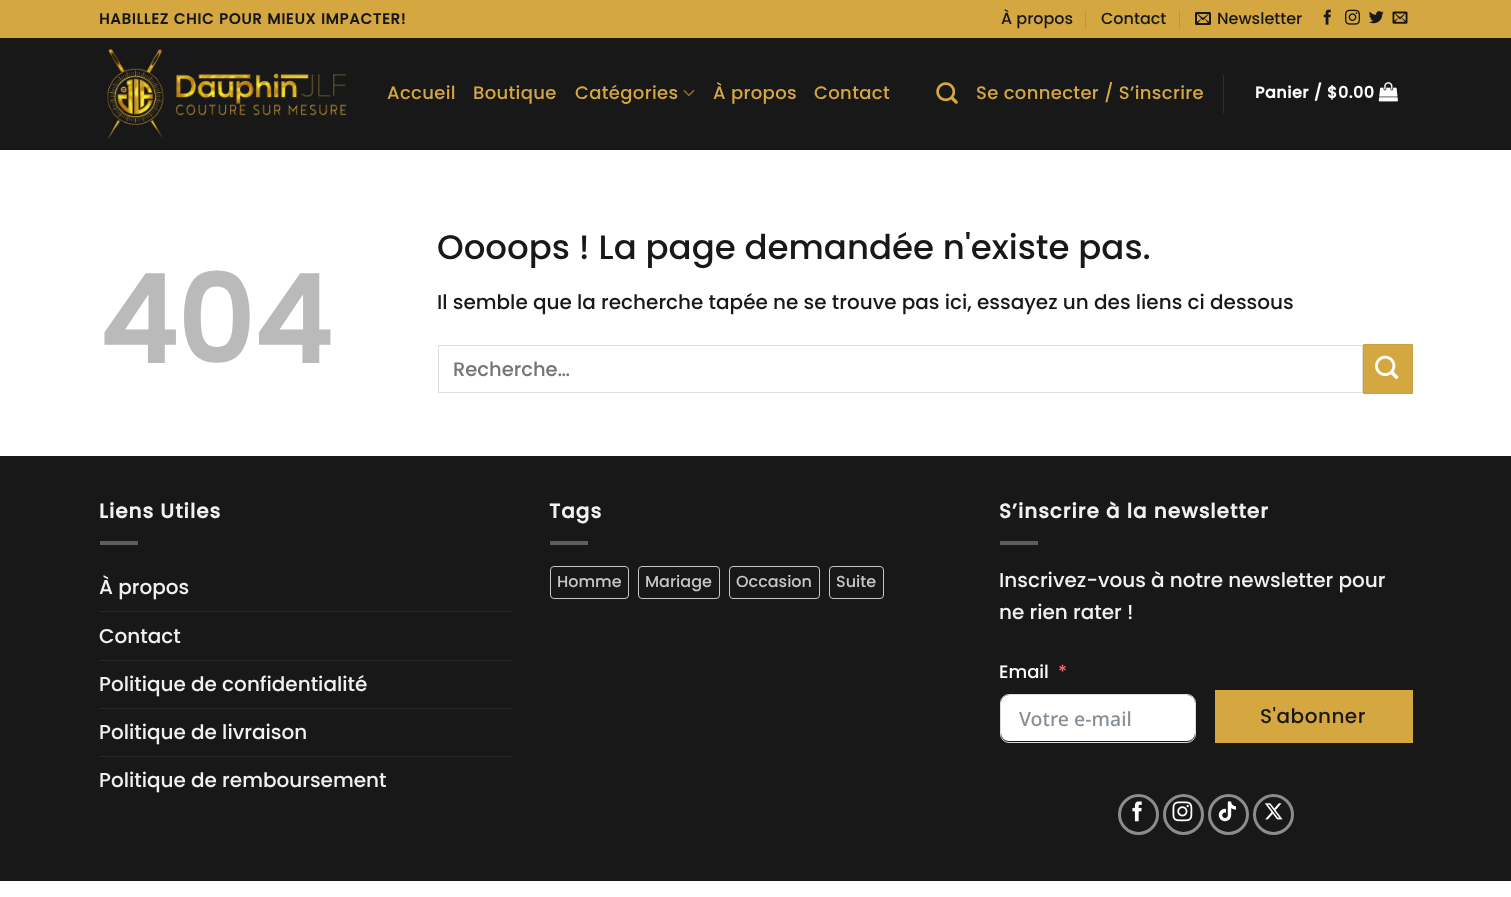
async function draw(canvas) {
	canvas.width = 1511;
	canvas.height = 897;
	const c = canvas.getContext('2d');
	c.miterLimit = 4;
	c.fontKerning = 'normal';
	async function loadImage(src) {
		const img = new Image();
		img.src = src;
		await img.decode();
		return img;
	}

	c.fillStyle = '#fff';
	c.fillRect(0, 0, 1511, 897);
	c.fillStyle = '#d5a740';
	c.fillRect(0, 0, 1511, 38);
	c.letterSpacing = '0.75px';
	c.font = 'bold 15px Poppins';
	c.fillStyle = '#181818';
	c.fillText('HABILLEZ CHIC POUR MIEUX IMPACTER!', 99, 24);
	c.letterSpacing = '0px';
	c.font = '500 16px Poppins';
	c.fillText('À propos', 1001, 24);
	c.fillStyle = '#c0963a';
	c.fillRect(1085, 10, 1, 19);
	c.fillStyle = '#181818';
	c.fillText('Contact', 1101, 24);
	c.fillStyle = '#c0963a';
	c.fillRect(1179, 10, 1, 19);
	c.drawImage(await loadImage('img1.png'), 1195, 12, 16, 13);
	c.fillStyle = '#181818';
	c.fillText('Newsletter', 1217, 24);
	c.drawImage(await loadImage('img2.png'), 1323, 9, 8, 16);
	c.drawImage(await loadImage('img3.png'), 1345, 9, 15, 16);
	c.drawImage(await loadImage('img4.png'), 1369, 11, 15, 13);
	c.drawImage(await loadImage('img5.png'), 1392, 11, 16, 13);
	c.fillRect(0, 38, 1511, 112);
	c.drawImage(await loadImage('img6.png'), 107, 48, 240, 91);
	c.letterSpacing = '0.35px';
	c.font = '500 18px Poppins';
	c.fillStyle = '#d5a740';
	for (const [text, x, y] of [
		['Accueil', 387, 99],
		['Boutique', 473, 99],
		['Catégories', 575, 99],
	]) {
		c.fillText(text, x, y);
	}
	c.drawImage(await loadImage('img7.png'), 683, 89, 12, 8);
	c.fillText('À propos', 713, 99);
	c.fillText('Contact', 814, 99);
	c.drawImage(await loadImage('img8.png'), 936, 82, 22, 22);
	c.fillText('Se connecter / S’inscrire', 976, 99);
	c.fillStyle = '#2f2f2f';
	c.fillRect(1223, 75, 1, 38);
	c.letterSpacing = '0.5px';
	c.font = 'bold 16px Poppins';
	c.fillStyle = '#fff';
	c.fillText('Panier / $0.00', 1255, 98);
	c.drawImage(await loadImage('img9.png'), 1378, 82, 20, 20);
	c.letterSpacing = '0px';
	c.font = 'bold 120px Poppins';
	c.fillStyle = '#bababa';
	c.fillText('404', 99, 363);
	c.font = '500 34px Poppins';
	c.fillStyle = '#181818';
	c.fillText('Oooops ! La page demandée n\'existe pas.', 437, 259);
	c.font = '500 20px Poppins';
	c.fillText('Il semble que la recherche tapée ne se trouve pas ici, essayez un des liens ci dessous', 437, 309);
	c.strokeStyle = '#ddd';
	c.strokeRect(438.5, 345.5, 924, 47);
	c.font = '500 19.5px Poppins';
	c.fillStyle = '#757575';
	c.fillText('Recherche…', 453, 376);
	c.fillStyle = '#d5a740';
	c.beginPath();
	c.rect(1363.5, 344.5, 49, 49);
	c.fill();
	c.strokeStyle = '#ca9f3d';
	c.stroke();
	c.drawImage(await loadImage('img10.png'), 1375, 355, 24, 24);
	c.fillStyle = '#181818';
	c.fillRect(0, 456, 1511, 425);
	c.letterSpacing = '1px';
	c.font = 'bold 20px Poppins';
	c.fillStyle = '#f1f1f1';
	c.fillText('Liens Utiles', 99, 518);
	c.fillStyle = '#5d5d5d';
	c.fillRect(100, 541, 38, 4);
	c.letterSpacing = '0px';
	c.font = '500 20px Poppins';
	c.fillStyle = '#f1f1f1';
	c.fillText('À propos', 99, 594);
	c.fillStyle = '#2a2a2a';
	c.fillRect(100, 611, 413, 1);
	c.fillStyle = '#f1f1f1';
	c.fillText('Contact', 99, 643);
	c.fillStyle = '#2a2a2a';
	c.fillRect(100, 660, 413, 1);
	c.fillStyle = '#f1f1f1';
	c.fillText('Politique de confidentialité', 99, 691);
	c.fillStyle = '#2a2a2a';
	c.fillRect(100, 708, 413, 1);
	c.fillStyle = '#f1f1f1';
	c.fillText('Politique de livraison', 99, 739);
	c.fillStyle = '#2a2a2a';
	c.fillRect(100, 756, 413, 1);
	c.fillStyle = '#f1f1f1';
	c.fillText('Politique de remboursement', 99, 787);
	c.letterSpacing = '1px';
	c.font = 'bold 20px Poppins';
	c.fillText('Tags', 549, 518);
	c.fillStyle = '#5d5d5d';
	c.fillRect(550, 541, 38, 4);
	c.beginPath();
	c.roundRect(550.5, 566.5, 78, 32, 3.5);
	c.strokeStyle = '#c6c6c6';
	c.stroke();
	c.letterSpacing = '0px';
	c.font = '500 16px Poppins';
	c.fillStyle = '#c6c6c6';
	c.fillText('Homme', 557, 587);
	c.beginPath();
	c.roundRect(638.5, 566.5, 81, 32, 3.5);
	c.stroke();
	c.fillText('Mariage', 645, 587);
	c.beginPath();
	c.roundRect(729.5, 566.5, 90, 32, 3.5);
	c.stroke();
	c.fillText('Occasion', 736, 587);
	c.beginPath();
	c.roundRect(829.5, 566.5, 54, 32, 3.5);
	c.stroke();
	c.fillText('Suite', 836, 587);
	c.letterSpacing = '1px';
	c.font = 'bold 20px Poppins';
	c.fillStyle = '#f1f1f1';
	c.fillText('S’inscrire à la newsletter', 999, 518);
	c.fillStyle = '#5d5d5d';
	c.fillRect(1000, 541, 38, 4);
	c.letterSpacing = '0px';
	c.font = '500 20px Poppins';
	c.fillStyle = '#f1f1f1';
	c.fillText('Inscrivez-vous à notre newsletter pour', 999, 587);
	c.fillText('ne rien rater !', 999, 619);
	c.font = '500 18px Poppins';
	c.fillStyle = '#fff';
	c.fillText('Email', 999, 678);
	c.fillStyle = '#f56c6c';
	c.fillText('*', 1058, 678);
	c.fillStyle = '#fff';
	c.beginPath();
	c.roundRect(1001, 695, 194, 46, 8);
	c.fill();
	c.beginPath();
	c.roundRect(1000.5, 694.5, 195, 48, 8.5);
	c.strokeStyle = '#dadbdd';
	c.stroke();
	c.font = '500 19.5px Noto Sans';
	c.fillStyle = '#868e96';
	c.fillText('Votre e-mail', 1019, 726);
	c.fillStyle = '#d5a740';
	c.fillRect(1215, 690, 198, 53);
	c.letterSpacing = '0.5px';
	c.font = '500 20px Poppins';
	c.fillStyle = '#181818';
	c.fillText('S\'abonner', 1260, 723);
	c.beginPath();
	c.arc(1138.5, 814.5, 19, 0, 2 * Math.PI);
	c.strokeStyle = '#8c8c8c';
	c.lineWidth = 3;
	c.stroke();
	c.drawImage(await loadImage('img11.png'), 1132, 801, 10, 21);
	c.beginPath();
	c.arc(1183.5, 814.5, 19, 0, 2 * Math.PI);
	c.stroke();
	c.drawImage(await loadImage('img12.png'), 1172, 801, 21, 21);
	c.beginPath();
	c.arc(1228.5, 814.5, 19, 0, 2 * Math.PI);
	c.stroke();
	c.drawImage(await loadImage('img13.png'), 1218, 801, 18, 21);
	c.beginPath();
	c.arc(1273.5, 814.5, 19, 0, 2 * Math.PI);
	c.stroke();
	c.drawImage(await loadImage('img14.png'), 1264, 803, 19, 17);
}

draw(document.querySelector('canvas'));
